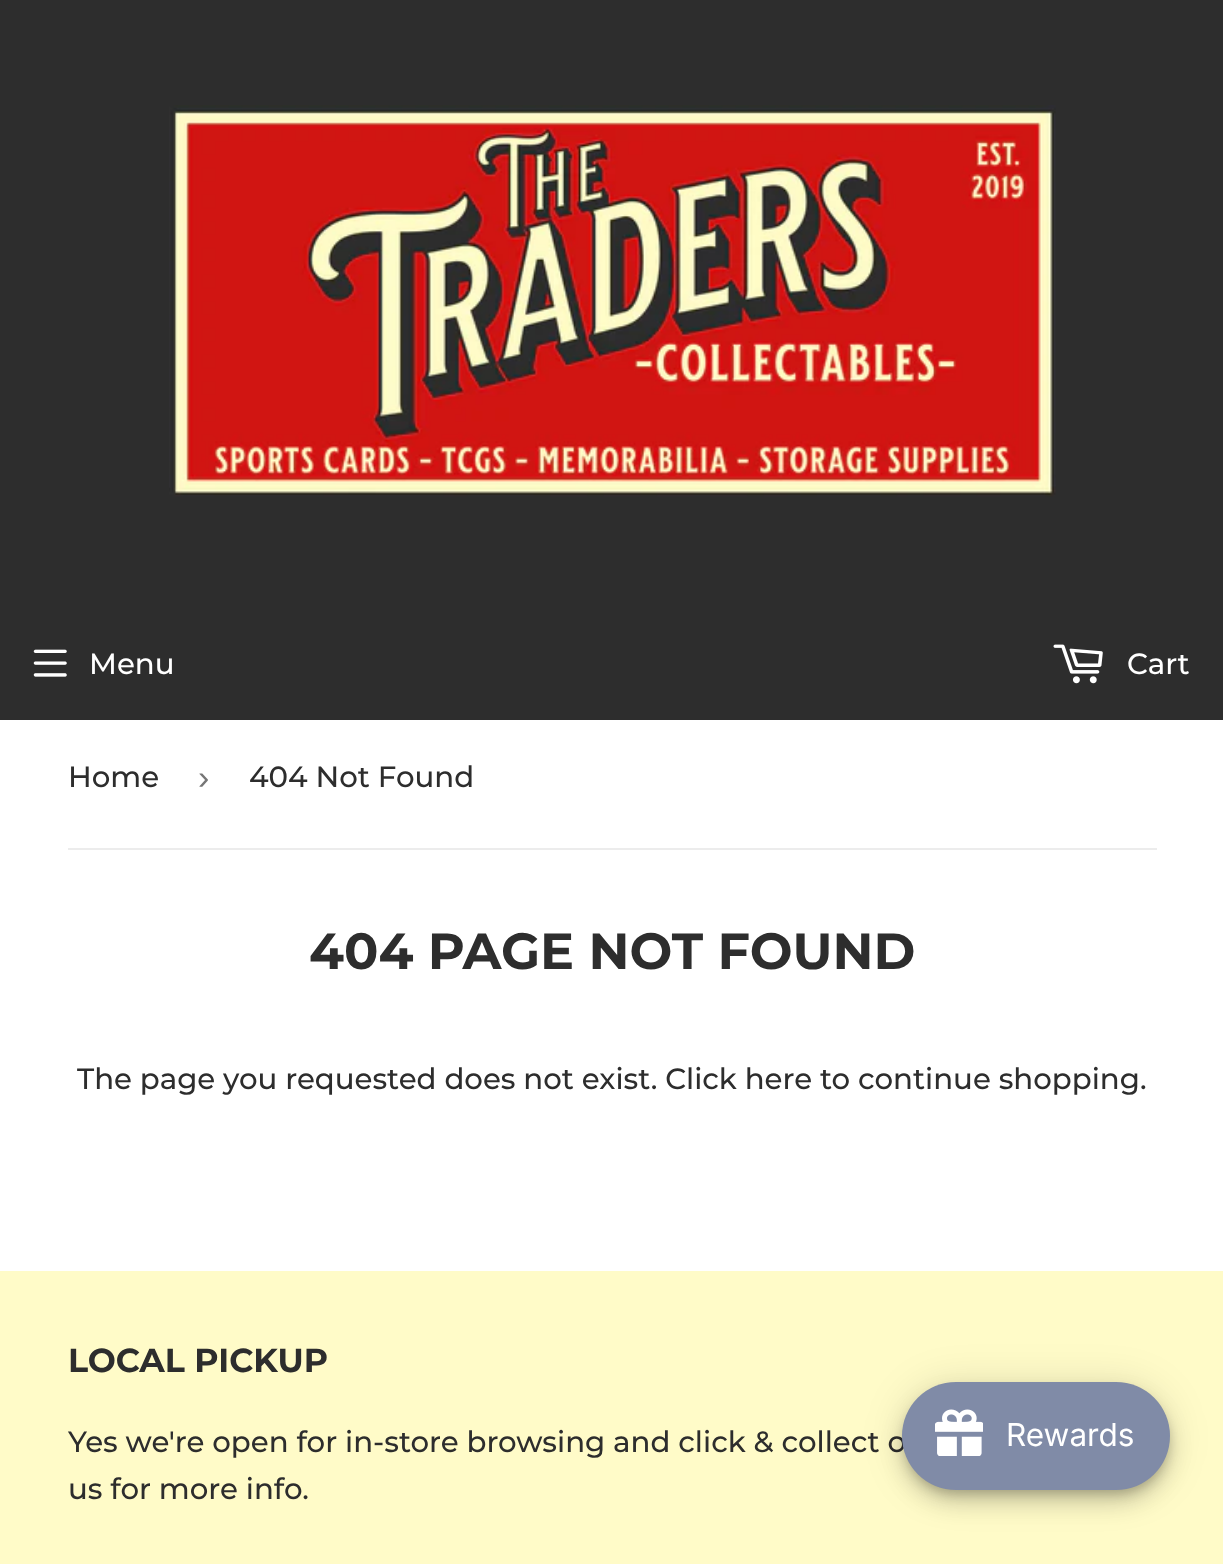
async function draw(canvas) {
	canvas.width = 1223;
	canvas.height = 1564;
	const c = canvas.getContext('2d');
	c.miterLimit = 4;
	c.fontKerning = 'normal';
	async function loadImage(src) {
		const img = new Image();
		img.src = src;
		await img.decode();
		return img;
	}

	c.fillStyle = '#fff';
	c.fillRect(0, 0, 1223, 1564);
	c.fillStyle = '#2d2d2d';
	c.fillRect(0, 0, 1223, 720);
	c.drawImage(await loadImage('img1.png'), 169, 105, 887, 392);
	c.drawImage(await loadImage('img2.png'), 33, 649, 34, 28);
	c.font = '500 29.25px Montserrat';
	c.fillStyle = '#fff';
	c.fillText('Menu', 89, 674);
	c.drawImage(await loadImage('img3.png'), 1053, 644, 50, 40);
	c.fillText('Cart', 1127, 674);
	c.fillStyle = '#ececec';
	c.fillRect(68, 848, 1089, 2);
	c.fillStyle = '#2d2d2d';
	c.fillText('Home', 68, 787);
	c.font = '34px Liberation Sans';
	c.fillStyle = '#767676';
	c.fillText('›', 198, 789);
	c.font = '500 29.25px Montserrat';
	c.fillStyle = '#2d2d2d';
	c.fillText('404 Not Found', 249, 787);
	c.font = 'bold 50.75px Montserrat';
	c.fillText('404 PAGE NOT FOUND', 309, 969);
	c.font = '500 29.25px Montserrat';
	c.fillText('The page you requested does not exist. Click here to continue shopping.', 77, 1089);
	c.fillStyle = '#fffbc8';
	c.fillRect(0, 1271, 1223, 293);
	c.font = 'bold 33.25px Montserrat';
	c.fillStyle = '#2d2d2d';
	c.fillText('LOCAL PICKUP', 68, 1372);
	c.font = '500 29.25px Montserrat';
	c.fillText('Yes we\'re open for in-store browsing and click & collect o', 68, 1452);
	c.fillText('us for more info.', 68, 1499);
	c.fillStyle = '#0000001f';
	c.filter = 'blur(20px)';
	c.beginPath();
	c.roundRect(902, 1384, 268, 108, 54);
	c.fill();
	c.filter = 'none';
	c.fillStyle = '#00000024';
	c.filter = 'blur(11px)';
	c.beginPath();
	c.roundRect(902, 1395, 268, 108, 54);
	c.fill();
	c.filter = 'none';
	c.fillStyle = '#00000033';
	c.filter = 'blur(5.5px)';
	c.beginPath();
	c.roundRect(905, 1391, 263, 103, 51.5);
	c.fill();
	c.filter = 'none';
	c.fillStyle = '#808ba7';
	c.beginPath();
	c.roundRect(902, 1382, 268, 108, 54);
	c.fill();
	c.drawImage(await loadImage('img4.png'), 935, 1409, 48, 47);
	c.font = '31.5px Inter';
	c.fillStyle = '#fff';
	c.fillText('Rewards', 1006, 1446);
}

draw(document.querySelector('canvas'));
